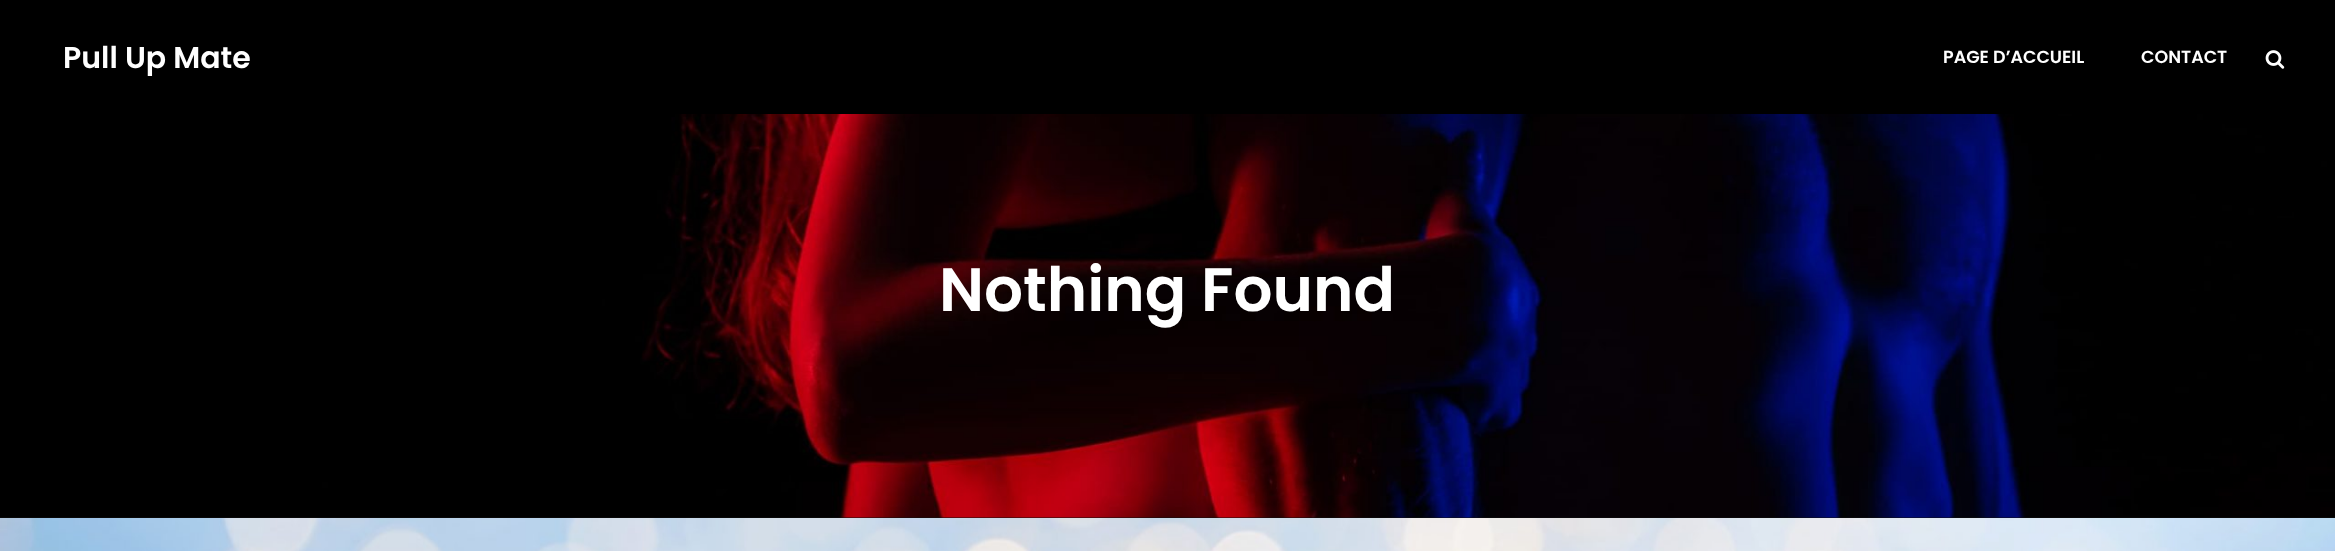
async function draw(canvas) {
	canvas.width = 2335;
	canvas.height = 551;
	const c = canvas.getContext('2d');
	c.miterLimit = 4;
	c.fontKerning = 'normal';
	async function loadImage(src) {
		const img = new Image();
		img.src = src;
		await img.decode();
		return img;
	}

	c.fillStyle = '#fff';
	c.fillRect(0, 0, 2335, 551);
	c.drawImage(await loadImage('img1.png'), 0, 518, 2335, 33);
	c.fillStyle = '#000';
	c.fillRect(0, 0, 2335, 114);
	c.font = '600 30px Poppins';
	c.fillStyle = '#fff';
	c.fillText('Pull Up Mate', 63, 68);
	c.font = '600 17.5px Poppins';
	c.fillText('PAGE D’ACCUEIL', 1943, 63);
	c.fillText('CONTACT', 2141, 63);
	c.drawImage(await loadImage('img2.png'), 2265, 50, 20, 19);
	c.fillStyle = '#111';
	c.fillRect(0, 517, 2335, 1);
	c.drawImage(await loadImage('img3.png'), 0, 114, 2335, 404);
	c.font = '600 61.25px Poppins';
	c.fillStyle = '#fff';
	c.fillText('Nothing Found', 939, 311);
}

draw(document.querySelector('canvas'));
